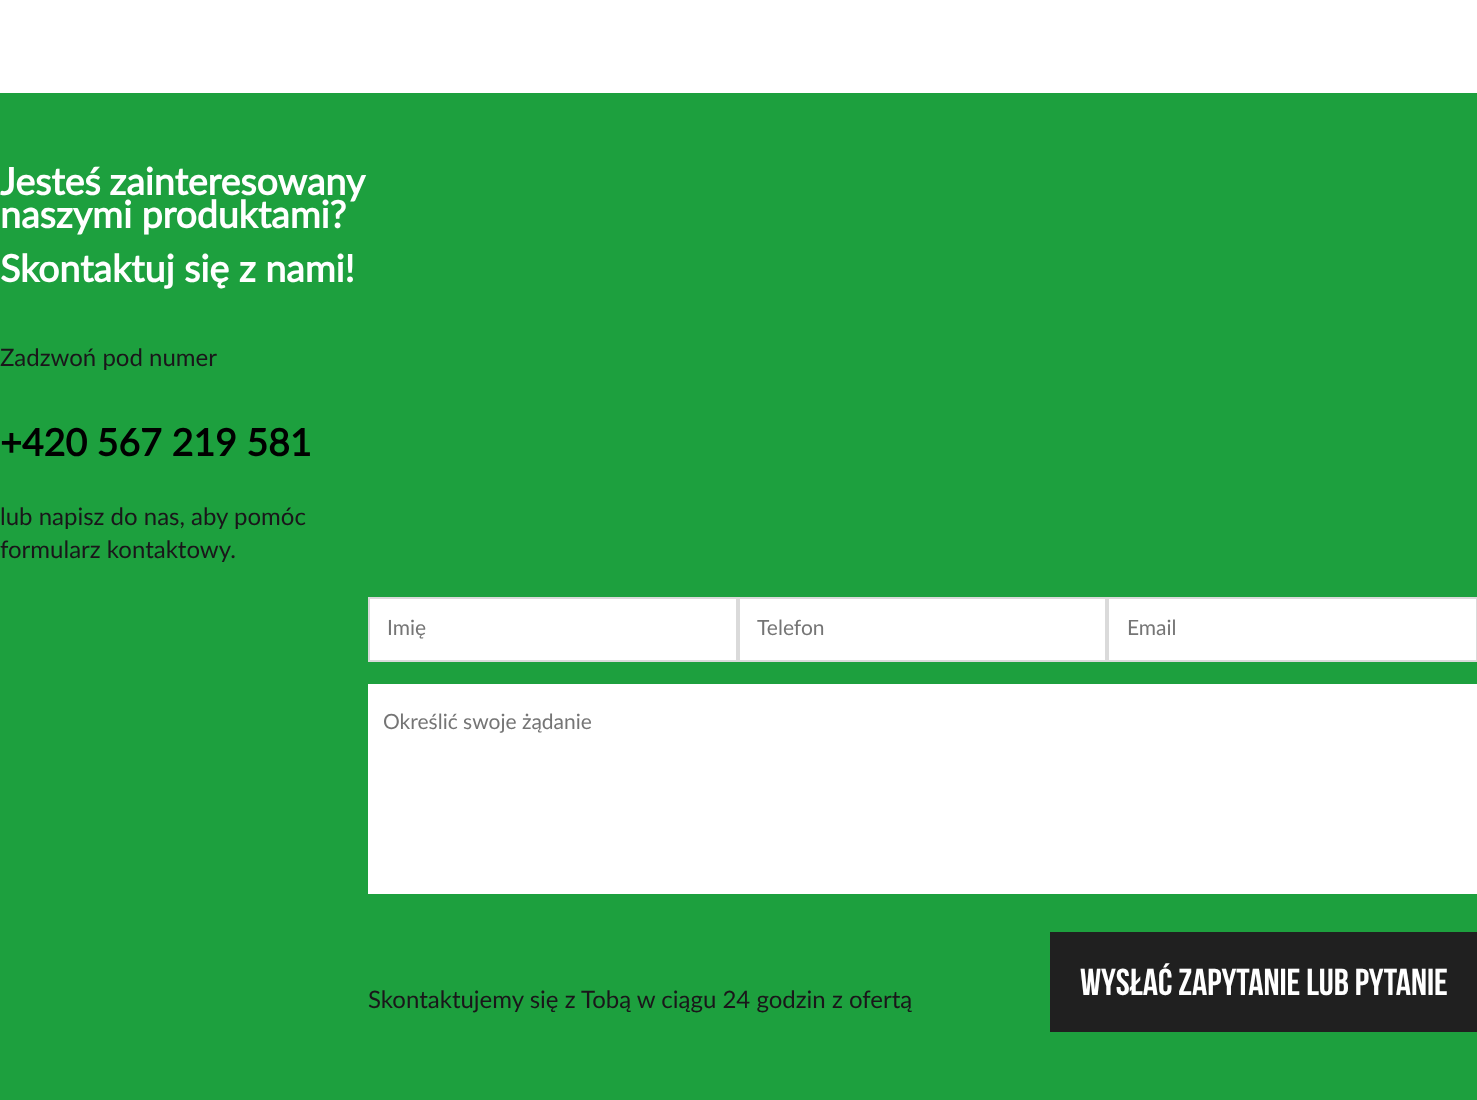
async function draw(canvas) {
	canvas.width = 1477;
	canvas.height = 1100;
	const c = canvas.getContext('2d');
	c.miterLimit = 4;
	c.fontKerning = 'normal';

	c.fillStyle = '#fff';
	c.fillRect(0, 0, 1477, 1100);
	c.fillStyle = '#1da03e';
	c.fillRect(0, 93, 1477, 1007);
	c.wordSpacing = '-1px';
	c.font = 'bold 37.5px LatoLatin';
	c.fillStyle = '#fff';
	c.fillText('Jesteś zainteresowany', 0, 195);
	c.wordSpacing = '0px';
	c.fillText('naszymi produktami?', 0, 228);
	c.fillText('Skontaktuj się z nami!', 0, 282);
	c.font = '24px LatoLatin';
	c.fillStyle = '#1a161a';
	c.fillText('Zadzwoń pod numer', 0, 366);
	c.font = 'bold 37.5px LatoLatin';
	c.fillStyle = '#000';
	c.fillText('+420 567 219 581', 0, 456);
	c.font = '24px LatoLatin';
	c.fillStyle = '#1a161a';
	c.fillText('lub napisz do nas, aby pomóc', 0, 525);
	c.fillText('formularz kontaktowy.', 0, 558);
	c.fillStyle = '#fff';
	c.beginPath();
	c.rect(369, 598, 368, 63);
	c.fill();
	c.strokeStyle = '#dadada';
	c.lineWidth = 2;
	c.stroke();
	c.font = '21px LatoLatin';
	c.fillStyle = '#757575';
	c.fillText('Imię', 387, 635);
	c.fillStyle = '#fff';
	c.beginPath();
	c.rect(739, 598, 367, 63);
	c.fill();
	c.stroke();
	c.fillStyle = '#757575';
	c.fillText('Telefon', 757, 635);
	c.fillStyle = '#fff';
	c.beginPath();
	c.rect(1108, 598, 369, 63);
	c.fill();
	c.stroke();
	c.fillStyle = '#757575';
	c.fillText('Email', 1127, 635);
	c.fillStyle = '#fff';
	c.fillRect(368, 684, 1109, 210);
	c.fillStyle = '#757575';
	c.fillText('Określić swoje żądanie', 383, 729);
	c.fillStyle = '#202020';
	c.fillRect(1050, 932, 427, 100);
	c.font = 'bold 37.5px Bebas Neue';
	c.fillStyle = '#fff';
	c.fillText('Wysłać zapytanie lub pytanie', 1080, 995);
	c.font = '24px LatoLatin';
	c.fillStyle = '#1a161a';
	c.fillText('Skontaktujemy się z Tobą w ciągu 24 godzin z ofertą', 368, 1008);
}

draw(document.querySelector('canvas'));
